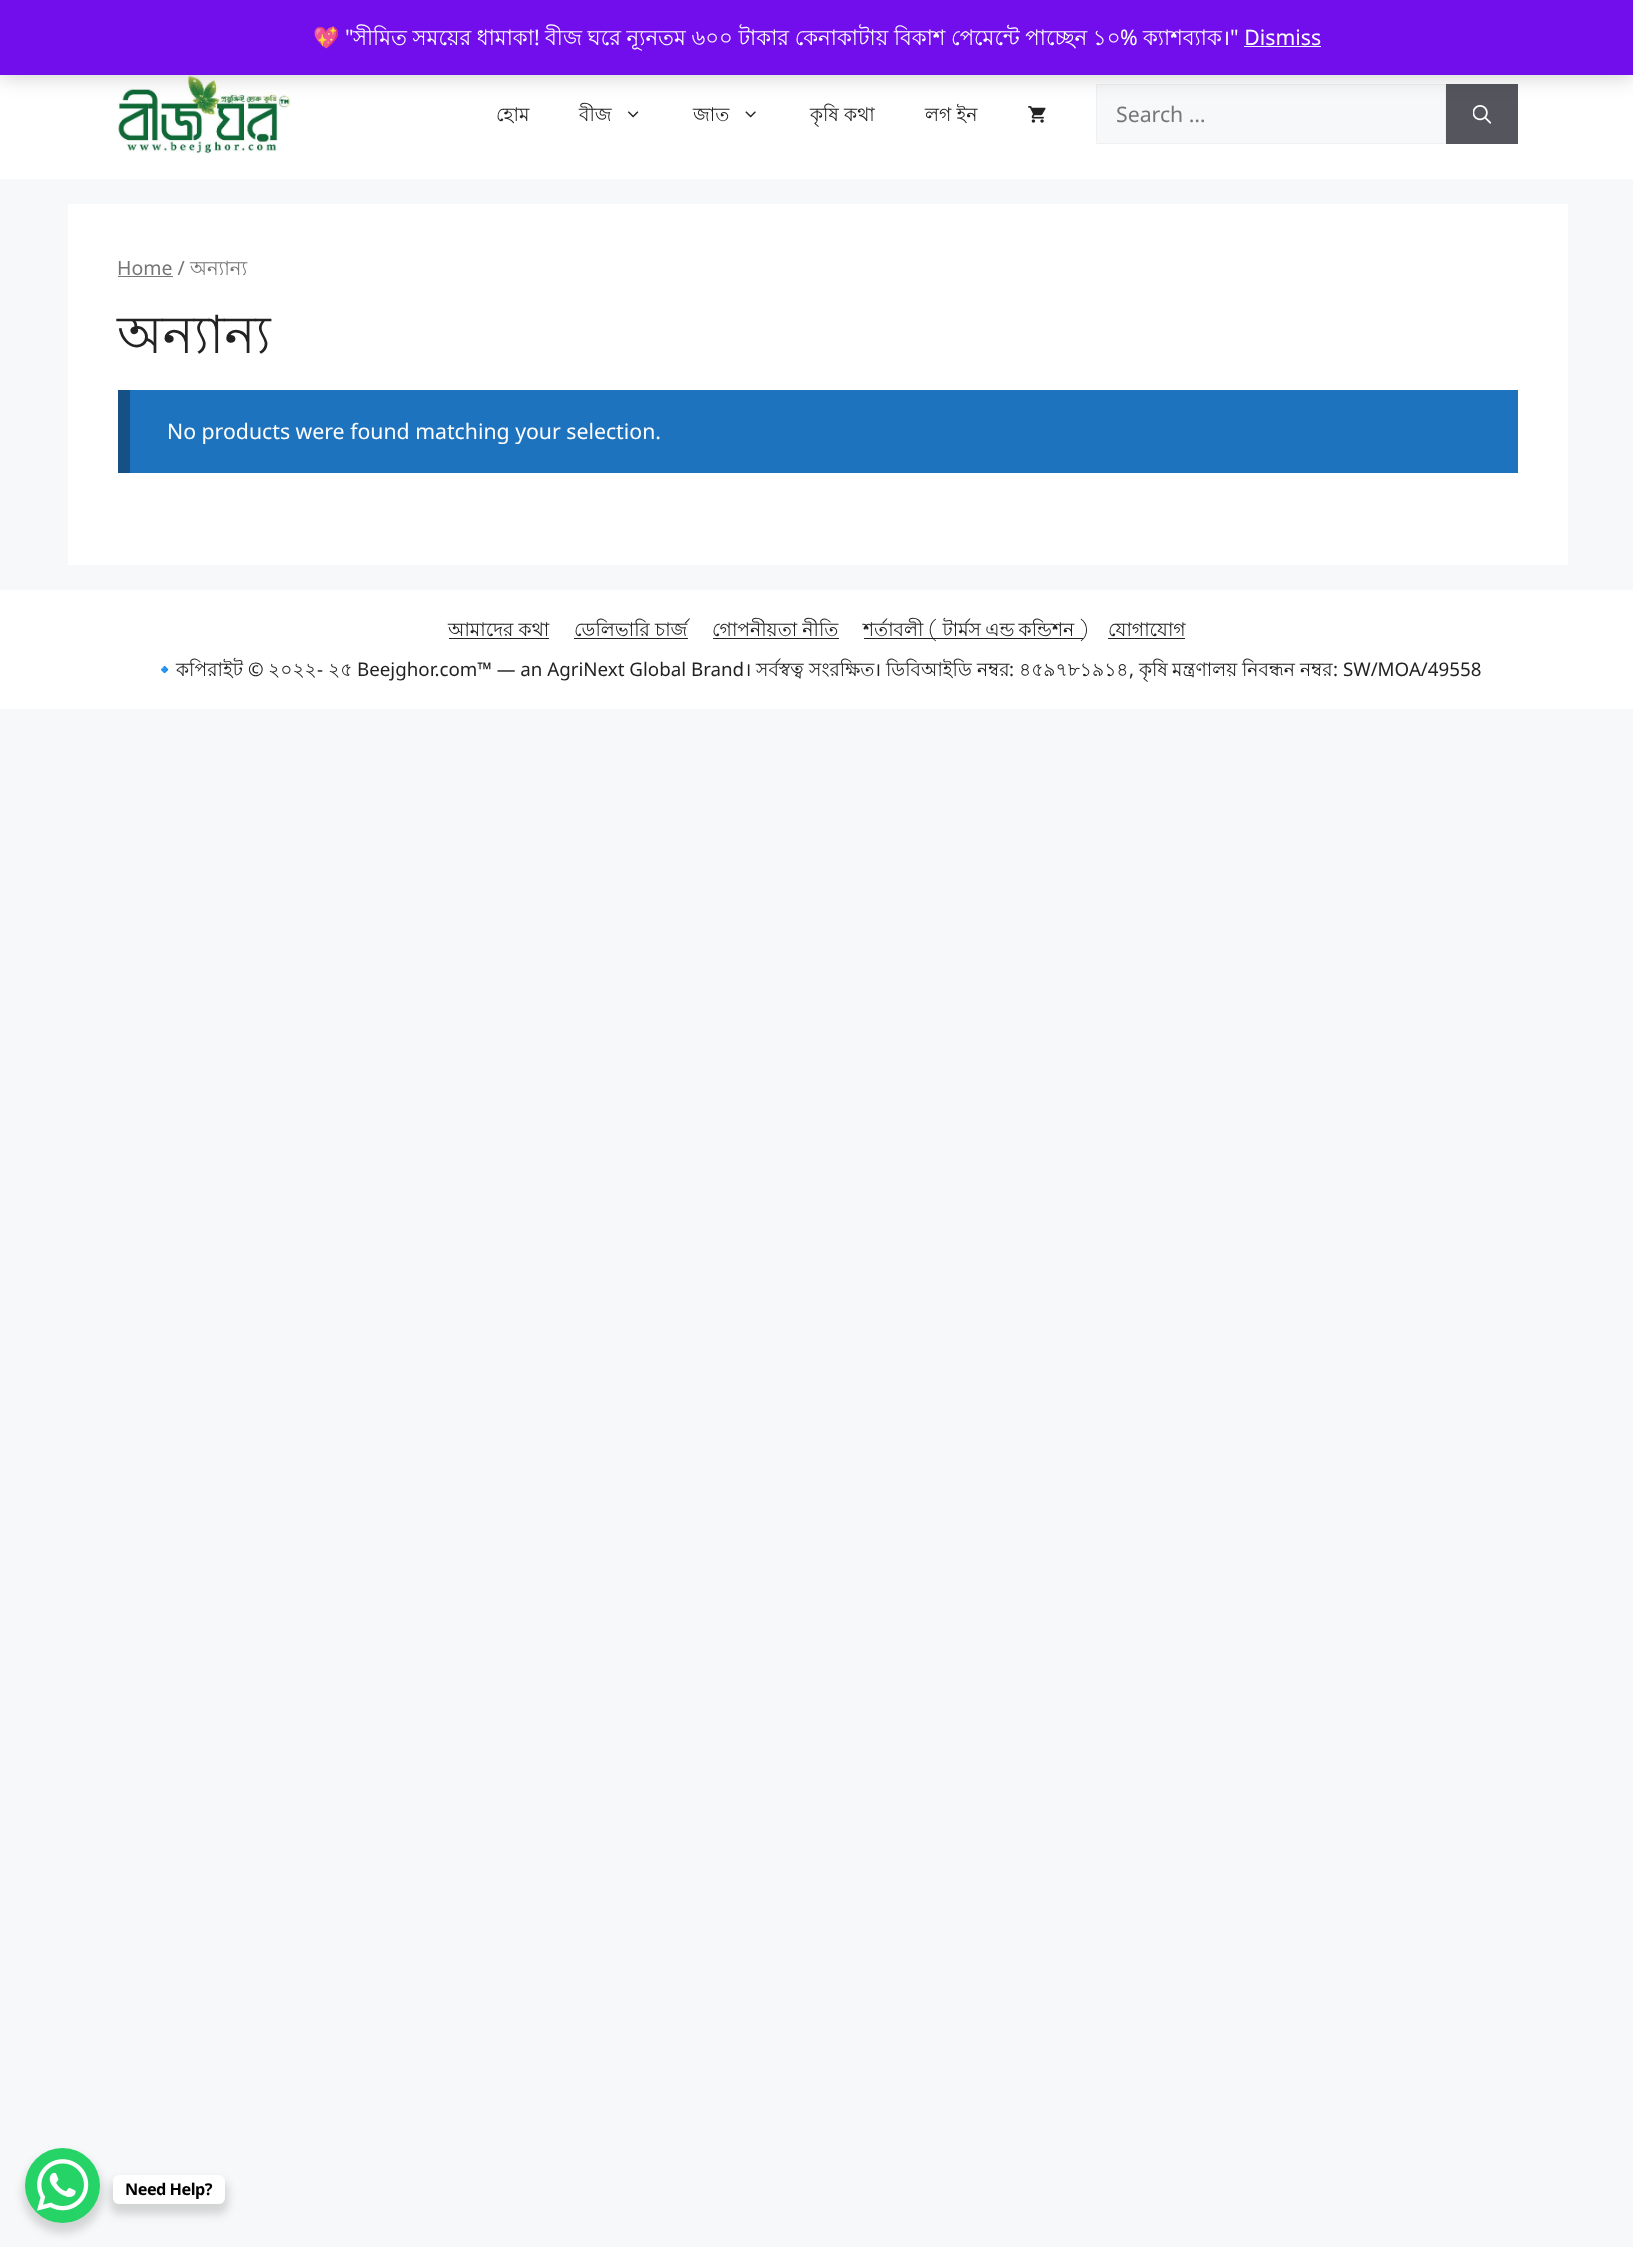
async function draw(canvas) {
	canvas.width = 1633;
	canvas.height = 2247;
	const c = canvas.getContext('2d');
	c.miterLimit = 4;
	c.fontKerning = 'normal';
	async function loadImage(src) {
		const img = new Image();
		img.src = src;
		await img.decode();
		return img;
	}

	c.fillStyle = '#f7f8f9';
	c.fillRect(0, 0, 1633, 2247);
	c.fillStyle = '#fff';
	c.fillRect(0, 75, 1633, 104);
	c.drawImage(await loadImage('img1.png'), 117, 75, 175, 79);
	c.drawImage(await loadImage('img4.png'), 1028, 106, 18, 17);
	c.fillStyle = '#f7f8f9';
	c.beginPath();
	c.rect(1096.5, 84.5, 349, 59);
	c.fill();
	c.strokeStyle = '#f0f0f0';
	c.stroke();
	c.fillStyle = '#55555e';
	c.fillRect(1446, 84, 72, 60);
	c.drawImage(await loadImage('img5.png'), 1473, 105, 18, 19);
	c.fillStyle = '#00000033';
	c.filter = 'blur(10.5px)';
	c.beginPath();
	c.rect(0, 1, 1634, 75);
	c.fill();
	c.filter = 'none';
	c.fillStyle = '#720eec';
	c.fillRect(0, 0, 1633, 75);
	c.font = '21.25px Noto Color Emoji';
	c.fillStyle = '#fff';
	c.fillText('💖', 313, 45);
	c.font = '21.25px Noto Sans';
	c.fillText('"', 345, 45);
	c.wordSpacing = '-0.25px';
	c.font = '21.25px Lohit Bengali';
	c.fillText('সীমিত সময়ের ধামাকা', 353, 45);
	c.wordSpacing = '0px';
	c.font = '21.25px Noto Sans';
	c.fillText('!', 534, 45);
	c.wordSpacing = '-0.25px';
	c.font = '21.25px Lohit Bengali';
	c.fillText('বীজ ঘরে ন্যূনতম ৬০০ টাকার কেনাকাটায় বিকাশ পেমেন্টে পাচ্ছেন ১০', 545, 45);
	c.wordSpacing = '0px';
	c.font = '21.25px Noto Sans';
	c.fillText('%', 1120, 45);
	c.font = '21.25px Lohit Bengali';
	c.fillText('ক্যাশব্যাক', 1143, 45);
	c.font = '21.25px Noto Sans';
	c.fillText('।" Dismiss', 1222, 45);
	c.fillStyle = '#fcfbfe';
	c.fillRect(1244, 46, 77, 1);
	c.font = '18.75px Lohit Bengali';
	c.fillStyle = '#222';
	c.fillText('হোম', 496, 121);
	c.fillText('বীজ', 579, 121);
	c.drawImage(await loadImage('img2.png'), 628, 111, 11, 7);
	c.fillText('জাত', 693, 121);
	c.drawImage(await loadImage('img3.png'), 745, 111, 11, 7);
	c.fillText('কৃষি কথা', 810, 121);
	c.fillText('লগ ইন', 925, 121);
	c.font = '21.25px Noto Sans';
	c.fillStyle = '#767676';
	c.fillText('Search …', 1116, 122);
	c.fillStyle = '#fff';
	c.fillRect(68, 204, 1500, 361);
	c.font = '19.5px Noto Sans';
	c.fillStyle = '#767676';
	c.fillText('Home /', 117, 275);
	c.fillRect(118, 276, 55, 1);
	c.font = '19.5px Lohit Bengali';
	c.fillText('অন্যান্য', 190, 275);
	c.font = '52.5px Lohit Bengali';
	c.fillStyle = '#222';
	c.fillText('অন্যান্য', 117, 353);
	c.fillStyle = '#1e73be';
	c.fillRect(130, 390, 1388, 83);
	c.fillStyle = '#155185';
	c.fillRect(118, 390, 12, 83);
	c.font = '21.25px Noto Sans';
	c.fillStyle = '#fff';
	c.fillText('No products were found matching your selection.', 167, 439);
	c.fillRect(0, 590, 1633, 119);
	c.font = '18.75px Lohit Bengali';
	c.fillStyle = '#222';
	c.fillText('আমাদের কথা', 448, 636);
	c.fillRect(449, 638, 100, 1);
	c.fillText('ডেলিভারি চার্জ', 574, 636);
	c.fillRect(574, 638, 114, 1);
	c.fillText('গোপনীয়তা নীতি', 712, 636);
	c.fillRect(713, 638, 126, 1);
	c.fillRect(864, 638, 219, 1);
	c.wordSpacing = '-1px';
	c.fillText('শর্তাবলী ( টার্মস এন্ড কন্ডিশন )', 863, 636);
	c.wordSpacing = '0px';
	c.fillText('যোগাযোগ', 1108, 636);
	c.fillRect(1108, 638, 77, 1);
	c.font = '18.75px Noto Color Emoji';
	c.fillText('🔹', 153, 676);
	c.font = '18.75px Lohit Bengali';
	c.fillText('কপিরাইট', 176, 676);
	c.font = '18.75px Noto Sans';
	c.fillText('©', 248, 676);
	c.font = '18.75px Lohit Bengali';
	c.fillText('২০২২', 268, 676);
	c.font = '18.75px Noto Sans';
	c.fillText('-', 317, 676);
	c.font = '18.75px Lohit Bengali';
	c.fillText('২৫', 328, 676);
	c.font = '18.75px Noto Sans';
	c.fillText('Beejghor.com™ — an AgriNext Global Brand।', 357, 676);
	c.font = '18.75px Lohit Bengali';
	c.fillText('সর্বস্বত্ব', 756, 676);
	c.fillText('সংরক্ষিত', 809, 676);
	c.font = '18.75px Noto Sans';
	c.fillText('।', 874, 676);
	c.font = '18.75px Lohit Bengali';
	c.fillText('ডিবিআইডি', 886, 676);
	c.fillText('নম্বর', 977, 676);
	c.font = '18.75px Noto Sans';
	c.fillText(':', 1009, 676);
	c.font = '18.75px Lohit Bengali';
	c.fillText('৪৫৯৭৮১৯১৪', 1019, 676);
	c.font = '18.75px Noto Sans';
	c.fillText(',', 1129, 676);
	c.font = '18.75px Lohit Bengali';
	for (const [text, x, y] of [
		['কৃষি', 1139, 676],
		['মন্ত্রণালয়', 1172, 676],
		['নিবন্ধন', 1242, 676],
		['নম্বর', 1300, 676],
	]) {
		c.fillText(text, x, y);
	}
	c.font = '18.75px Noto Sans';
	c.fillText(': SW/MOA/49558', 1333, 676);
	c.fillStyle = '#00000026';
	c.filter = 'blur(5px)';
	c.beginPath();
	c.roundRect(23, 2153, 80, 80, 40);
	c.fill();
	c.filter = 'none';
	c.fillStyle = '#25d366';
	c.beginPath();
	c.arc(62.5, 2185.5, 37.5, 0, 2 * Math.PI);
	c.fill();
	c.drawImage(await loadImage('img6.png'), 37, 2159, 52, 52);
	c.fillStyle = '#00000026';
	c.filter = 'blur(5px)';
	c.beginPath();
	c.roundRect(110, 2180, 118, 34, 9);
	c.fill();
	c.filter = 'none';
	c.fillStyle = '#fff';
	c.beginPath();
	c.roundRect(113, 2175, 112, 29, 6);
	c.fill();
	c.letterSpacing = '-0.5px';
	c.font = 'bold 16.25px Noto Sans';
	c.fillStyle = '#000';
	c.fillText('Need Help?', 125, 2195);
}

draw(document.querySelector('canvas'));
